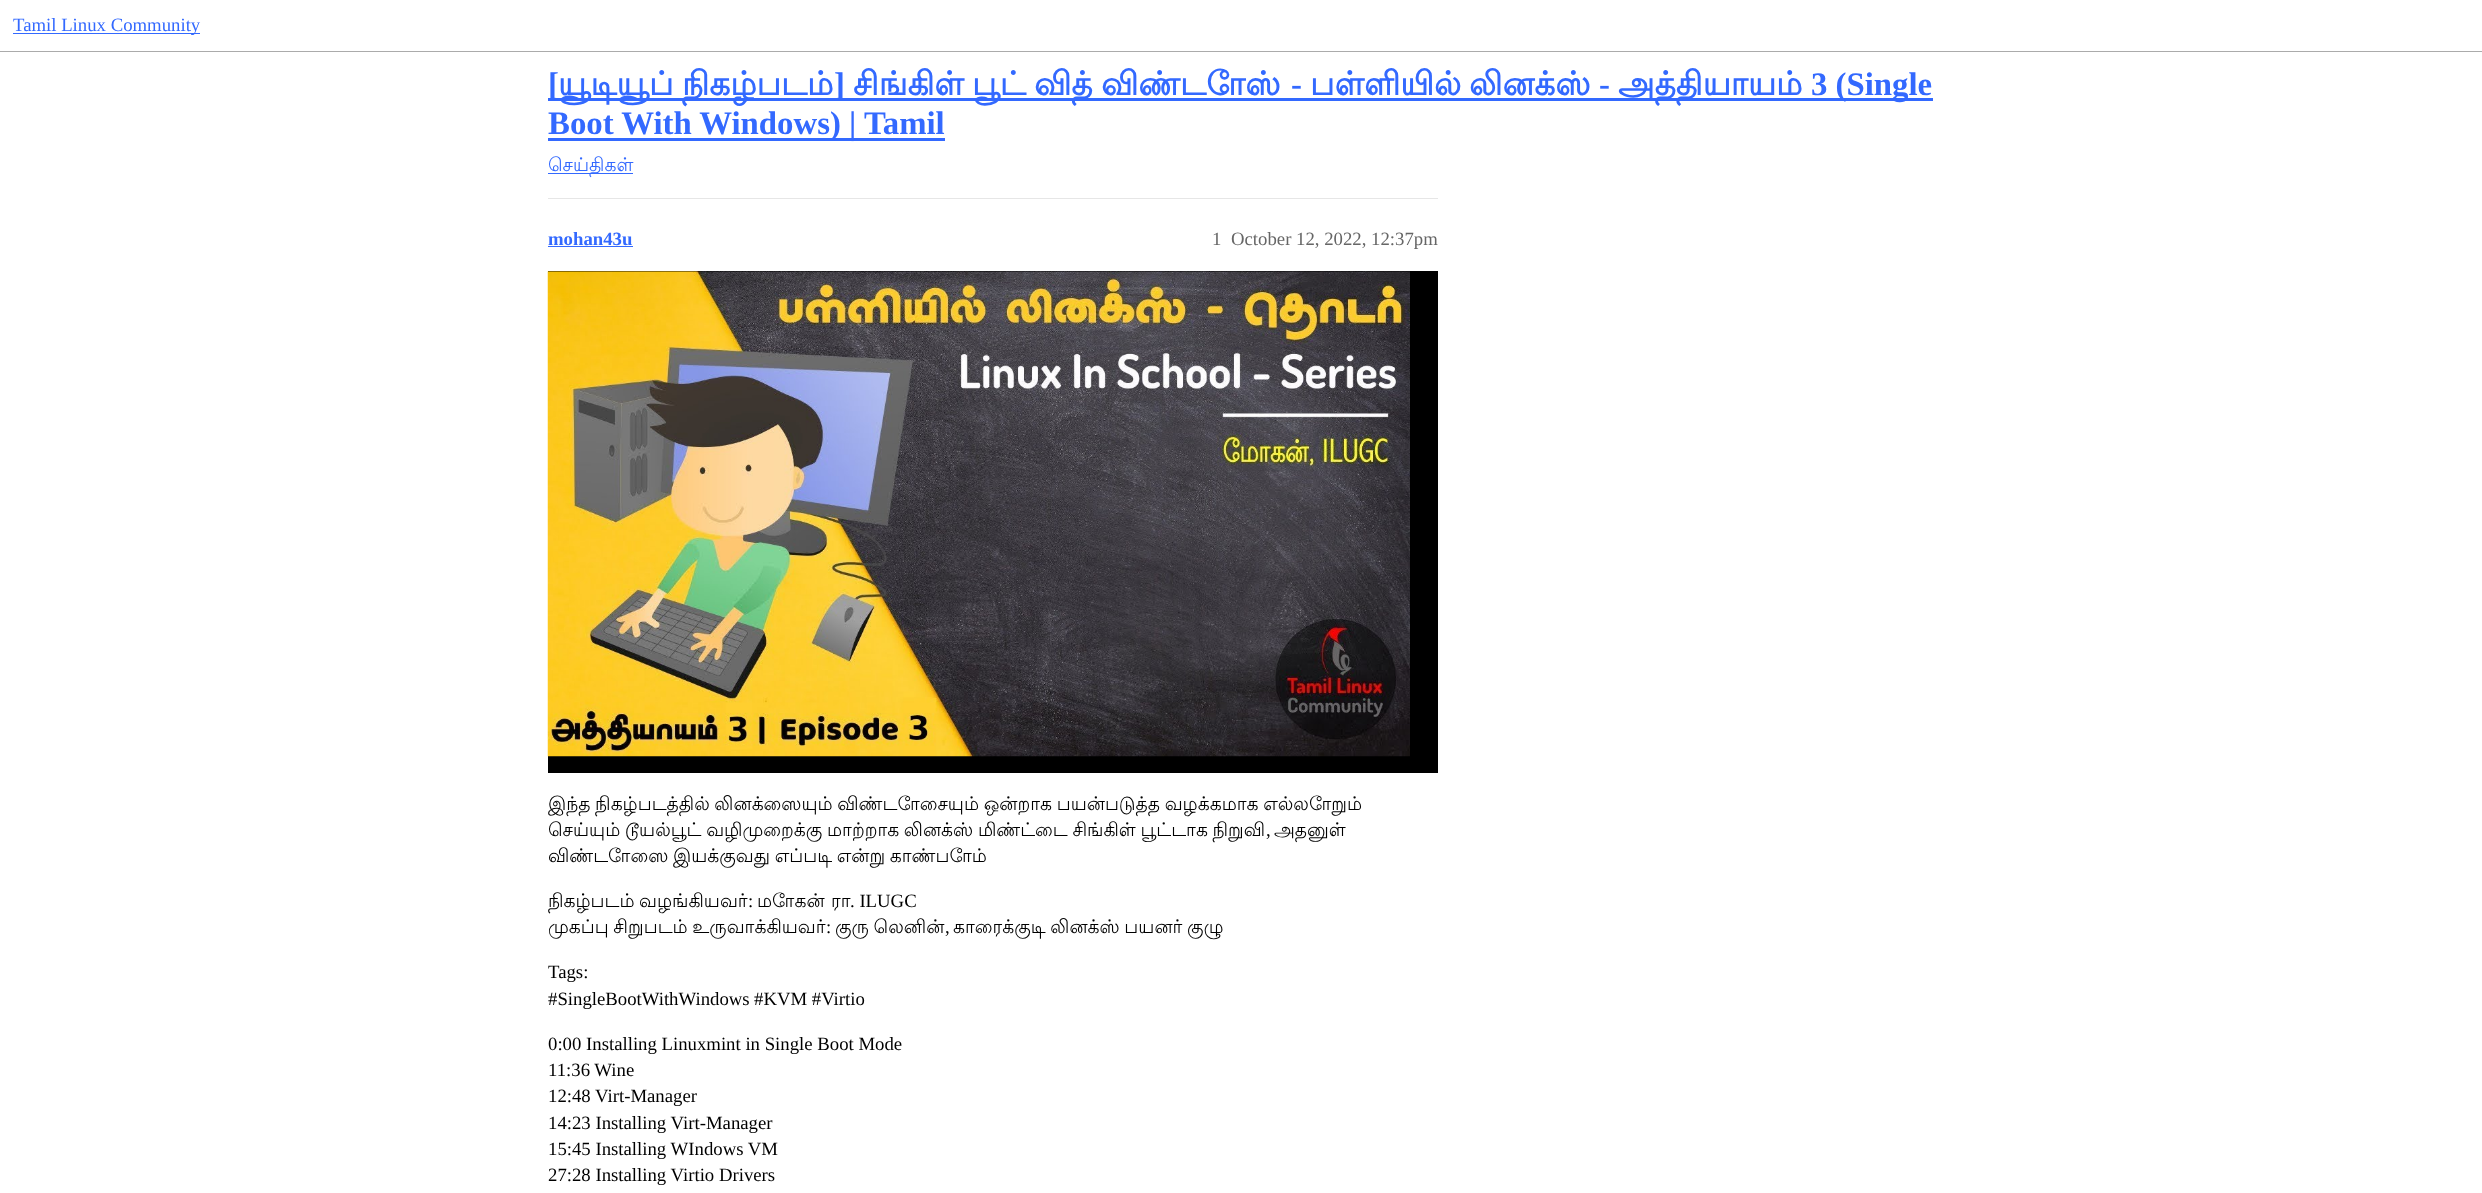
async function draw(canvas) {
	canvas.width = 2482;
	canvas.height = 1193;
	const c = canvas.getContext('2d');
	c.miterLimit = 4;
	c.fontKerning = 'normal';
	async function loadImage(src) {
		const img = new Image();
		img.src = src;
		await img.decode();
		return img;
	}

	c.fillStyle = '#fff';
	c.fillRect(0, 0, 2482, 1193);
	c.fillStyle = '#ababab';
	c.fillRect(0, 51, 2482, 1);
	c.fillStyle = '#3369ff';
	c.fillRect(13, 33, 187, 1);
	c.font = '18.75px Liberation Serif';
	c.fillText('Tamil Linux Community', 13, 31);
	c.fillRect(548, 98, 1385, 3);
	c.font = 'bold 32.8px Liberation Serif';
	c.fillText('[', 548, 95);
	c.font = 'bold 32.8px Lohit Tamil';
	c.fillText('யூடியூப்', 558, 95);
	c.fillText('நிகழ்படம்', 682, 95);
	c.font = 'bold 32.8px Liberation Serif';
	c.fillText(']', 834, 95);
	c.font = 'bold 32.8px Lohit Tamil';
	for (const [text, x, y] of [
		['சிங்கிள்', 853, 95],
		['பூட்', 972, 95],
		['வித்', 1034, 95],
		['விண்டோஸ்', 1101, 95],
	]) {
		c.fillText(text, x, y);
	}
	c.font = 'bold 32.8px Liberation Serif';
	c.fillText('-', 1291, 95);
	c.font = 'bold 32.8px Lohit Tamil';
	c.fillText('பள்ளியில்', 1310, 95);
	c.fillText('லினக்ஸ்', 1469, 95);
	c.font = 'bold 32.8px Liberation Serif';
	c.fillText('-', 1599, 95);
	c.font = 'bold 32.8px Lohit Tamil';
	c.fillText('அத்தியாயம்', 1618, 95);
	c.font = 'bold 32.8px Liberation Serif';
	c.fillText('3 (Single', 1811, 95);
	c.fillRect(548, 138, 397, 3);
	c.fillText('Boot With Windows) | Tamil', 548, 134);
	c.fillRect(548, 173, 85, 1);
	c.font = '18.75px Lohit Tamil';
	c.fillText('செய்திகள்', 548, 171);
	c.fillStyle = '#e6e6e6';
	c.fillRect(548, 198, 890, 1);
	c.font = 'bold 18.75px Liberation Serif';
	c.fillStyle = '#3369ff';
	c.fillText('mohan43u', 548, 245);
	c.fillRect(548, 246, 85, 1);
	c.font = '18.75px Liberation Serif';
	c.fillStyle = '#666';
	c.fillText('1', 1212, 245);
	c.fillText('October 12, 2022, 12:37pm', 1231, 245);
	c.fillStyle = '#000';
	c.fillRect(548, 271, 890, 502);
	c.drawImage(await loadImage('img1.png'), 547, 271, 863, 486);
	c.wordSpacing = '-1px';
	c.font = '18.75px Lohit Tamil';
	c.fillText('இந்த நிகழ்படத்தில் லினக்ஸையும் விண்டோசையும் ஒன்றாக பயன்படுத்த வழக்கமாக எல்லோறும்', 548, 810);
	c.fillText('செய்யும் டூயல்பூட் வழிமுறைக்கு மாற்றாக லினக்ஸ் மிண்ட்டை சிங்கிள் பூட்டாக நிறுவி', 548, 836);
	c.wordSpacing = '0px';
	c.font = '18.75px Liberation Serif';
	c.fillText(',', 1266, 836);
	c.font = '18.75px Lohit Tamil';
	c.fillText('அதனுள்', 1274, 836);
	c.wordSpacing = '-1px';
	c.fillText('விண்டோஸை இயக்குவது எப்படி என்று காண்போம்', 548, 862);
	c.save();
	c.beginPath();
	c.rect(548, 271, 890, 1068);
	c.clip();
	c.wordSpacing = '0px';
	c.fillText('நிகழ்படம்', 548, 907);
	c.restore();
	c.wordSpacing = '0px';
	c.fillText('வழங்கியவர்', 639, 907);
	c.font = '18.75px Liberation Serif';
	c.fillText(':', 748, 907);
	c.font = '18.75px Lohit Tamil';
	c.fillText('மோகன்', 757, 907);
	c.fillText('ரா', 831, 907);
	c.font = '18.75px Liberation Serif';
	c.fillText('. ILUGC', 850, 907);
	c.wordSpacing = '-1px';
	c.font = '18.75px Lohit Tamil';
	c.fillText('முகப்பு சிறுபடம் உருவாக்கியவர்', 548, 933);
	c.wordSpacing = '0px';
	c.font = '18.75px Liberation Serif';
	c.fillText(':', 826, 933);
	c.wordSpacing = '-1px';
	c.font = '18.75px Lohit Tamil';
	c.fillText('குரு லெனின்', 835, 933);
	c.wordSpacing = '0px';
	c.font = '18.75px Liberation Serif';
	c.fillText(',', 945, 933);
	c.wordSpacing = '-1px';
	c.font = '18.75px Lohit Tamil';
	c.fillText('காரைக்குடி லினக்ஸ் பயனர் குழு', 953, 933);
	c.save();
	c.beginPath();
	c.rect(548, 271, 890, 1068);
	c.clip();
	c.wordSpacing = '0px';
	c.font = '18.75px Liberation Serif';
	c.fillText('Tags:', 548, 978);
	c.fillText('#SingleBootWithWindows', 548, 1005);
	c.restore();
	c.wordSpacing = '0px';
	c.font = '18.75px Liberation Serif';
	for (const [text, x, y] of [
		['#KVM #Virtio', 754, 1005],
		['0:00 Installing Linuxmint in Single Boot Mode', 548, 1050],
		['11:36 Wine', 548, 1076],
		['12:48 Virt-Manager', 548, 1102],
		['14:23 Installing Virt-Manager', 548, 1129],
		['15:45 Installing WIndows VM', 548, 1155],
		['27:28 Installing Virtio Drivers', 548, 1181],
	]) {
		c.fillText(text, x, y);
	}
}

draw(document.querySelector('canvas'));
